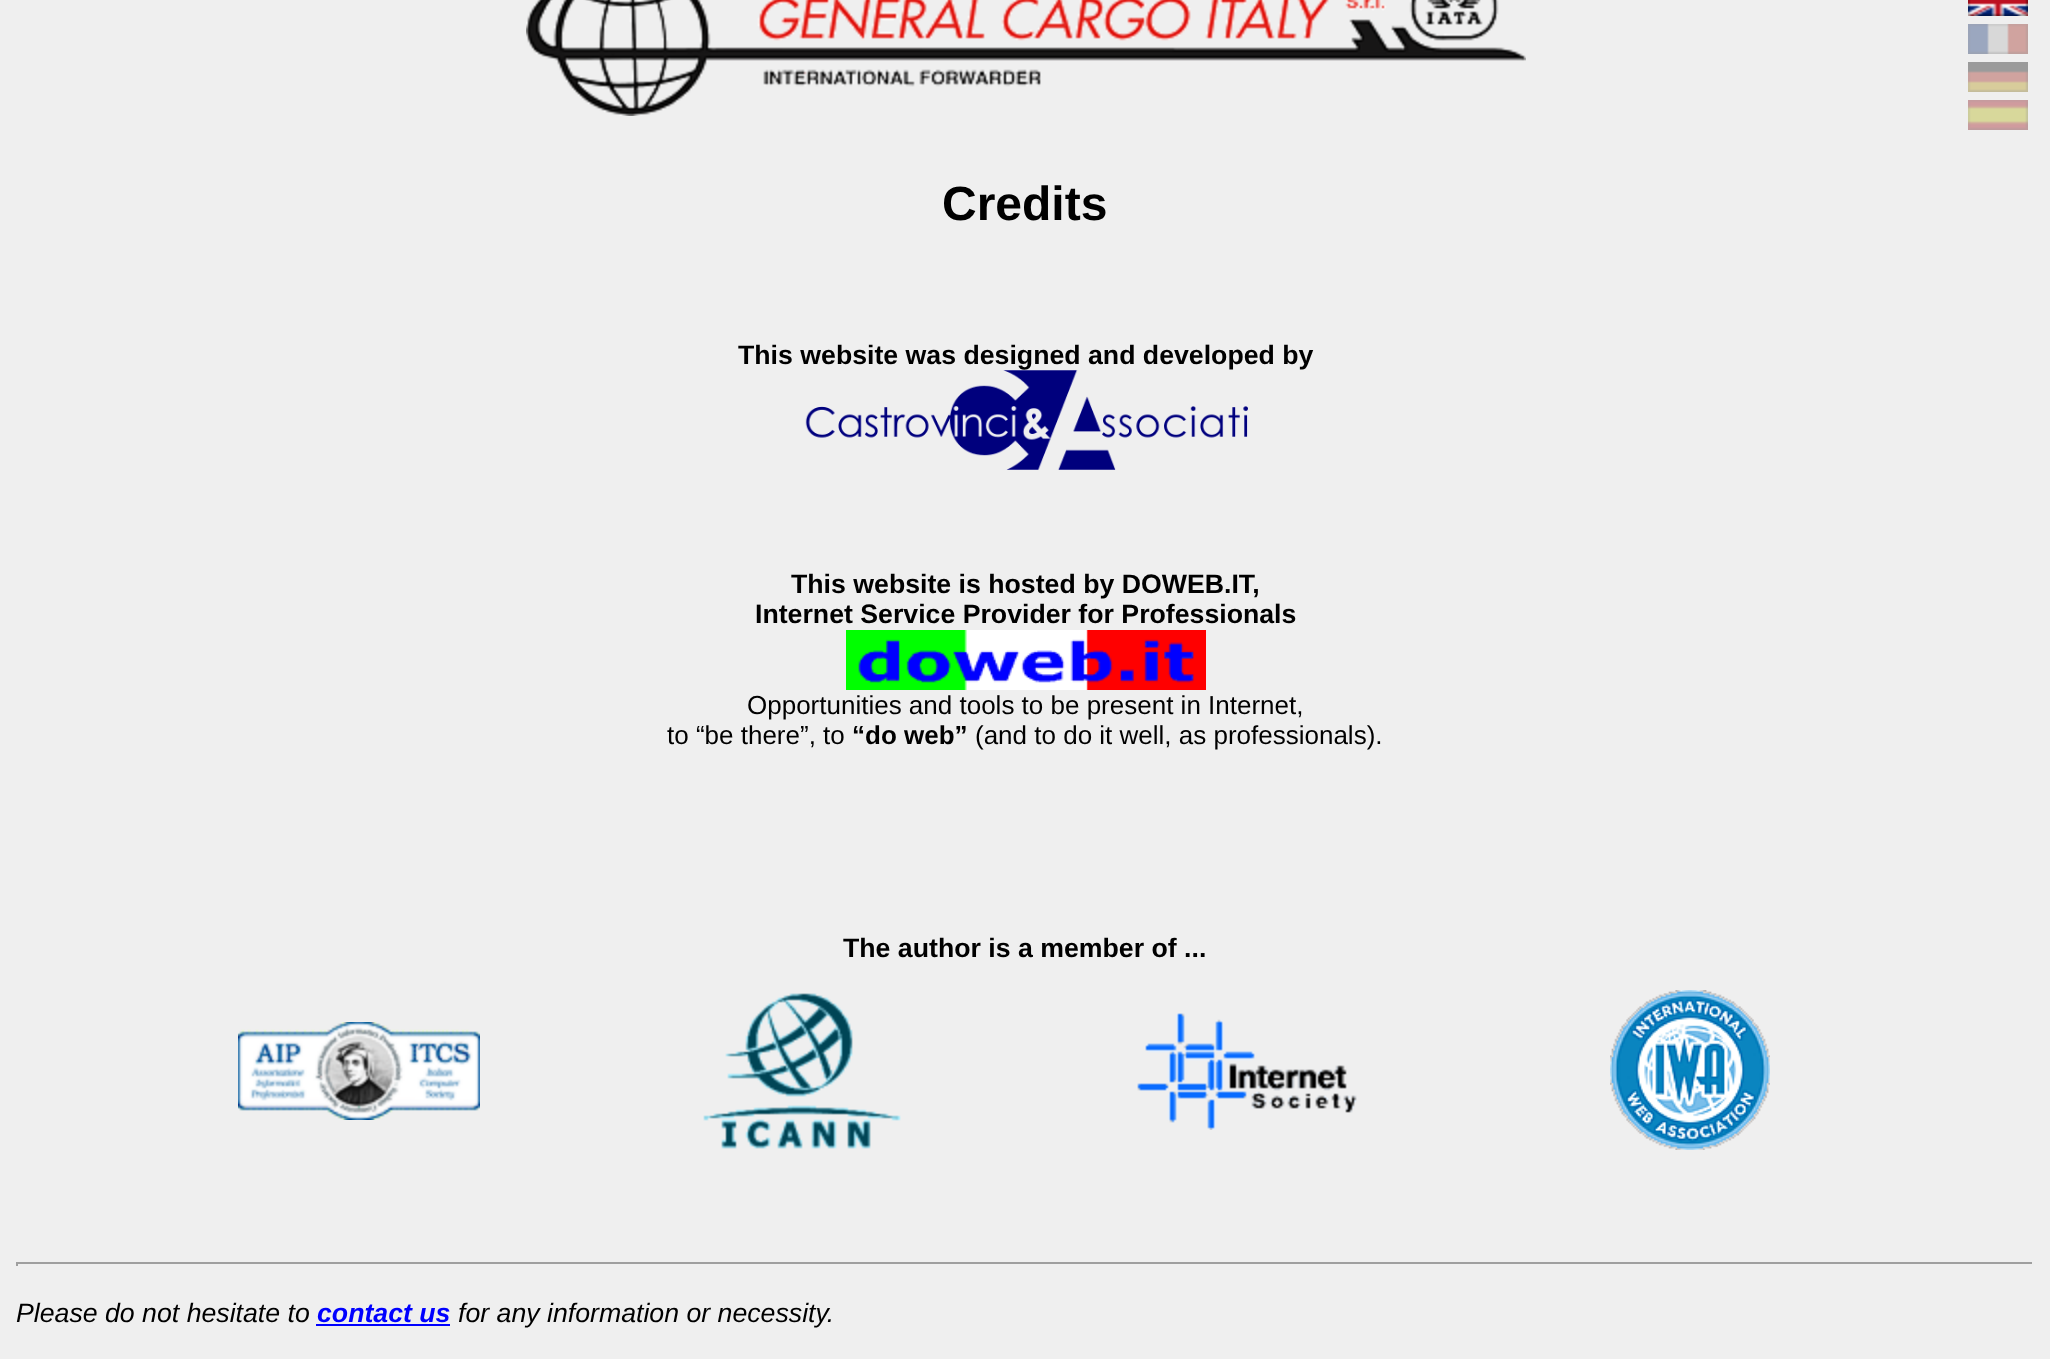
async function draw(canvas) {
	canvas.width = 2050;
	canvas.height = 1359;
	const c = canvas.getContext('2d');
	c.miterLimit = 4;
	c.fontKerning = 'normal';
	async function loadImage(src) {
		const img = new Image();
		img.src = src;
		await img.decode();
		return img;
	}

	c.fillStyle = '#efefef';
	c.fillRect(0, 0, 2050, 1359);
	c.drawImage(await loadImage('img1.png'), 526, 0, 1000, 116);
	c.drawImage(await loadImage('img2.png'), 1968, 0, 60, 16);
	c.drawImage(await loadImage('img3.png'), 1968, 24, 60, 30);
	c.drawImage(await loadImage('img4.png'), 1968, 62, 60, 30);
	c.drawImage(await loadImage('img5.png'), 1968, 100, 60, 30);
	c.font = 'bold 48px Liberation Sans';
	c.fillStyle = '#000';
	c.fillText('Credits', 942, 220);
	c.font = 'bold 26.7px Liberation Sans';
	c.fillText('This website was designed and developed by', 738, 364);
	c.drawImage(await loadImage('img6.png'), 805, 370, 443, 100);
	c.fillText('This website is hosted by DOWEB.IT,', 791, 593);
	c.fillText('Internet Service Provider for Professionals', 755, 623);
	c.drawImage(await loadImage('img7.png'), 846, 630, 360, 60);
	c.font = '26px Liberation Sans';
	c.fillText('Opportunities and tools to be present in Internet,', 747, 714);
	c.fillText('to “be there”, to', 667, 744);
	c.font = 'bold 26px Liberation Sans';
	c.fillText('“do web”', 852, 744);
	c.font = '26px Liberation Sans';
	c.fillText('(and to do it well, as professionals).', 975, 744);
	c.font = 'bold 26.7px Liberation Sans';
	c.fillText('The author is a member of ...', 843, 957);
	c.drawImage(await loadImage('img8.png'), 238, 1022, 242, 98);
	c.drawImage(await loadImage('img9.png'), 703, 993, 198, 156);
	c.drawImage(await loadImage('img10.png'), 1137, 1013, 220, 117);
	c.drawImage(await loadImage('img11.png'), 1610, 990, 160, 160);
	for (const [x, y, w, h, color] of [
		[16, 1262, 2018, 2, '#9f9f9f'],
		[2032, 1262, 2, 4, '#eee'],
		[16, 1262, 2, 4, '#9f9f9f'],
	]) {
		c.fillStyle = color;
		c.fillRect(x, y, w, h);
	}
	c.font = 'italic 26.7px Liberation Sans';
	c.fillStyle = '#000';
	c.fillText('Please do not hesitate to', 16, 1322);
	c.font = 'italic bold 26.7px Liberation Sans';
	c.fillStyle = '#00f';
	c.fillText('contact us', 317, 1322);
	c.fillRect(316, 1324, 134, 2);
	c.font = 'italic 26.7px Liberation Sans';
	c.fillStyle = '#000';
	c.fillText('for any information or necessity.', 458, 1322);
}

draw(document.querySelector('canvas'));
